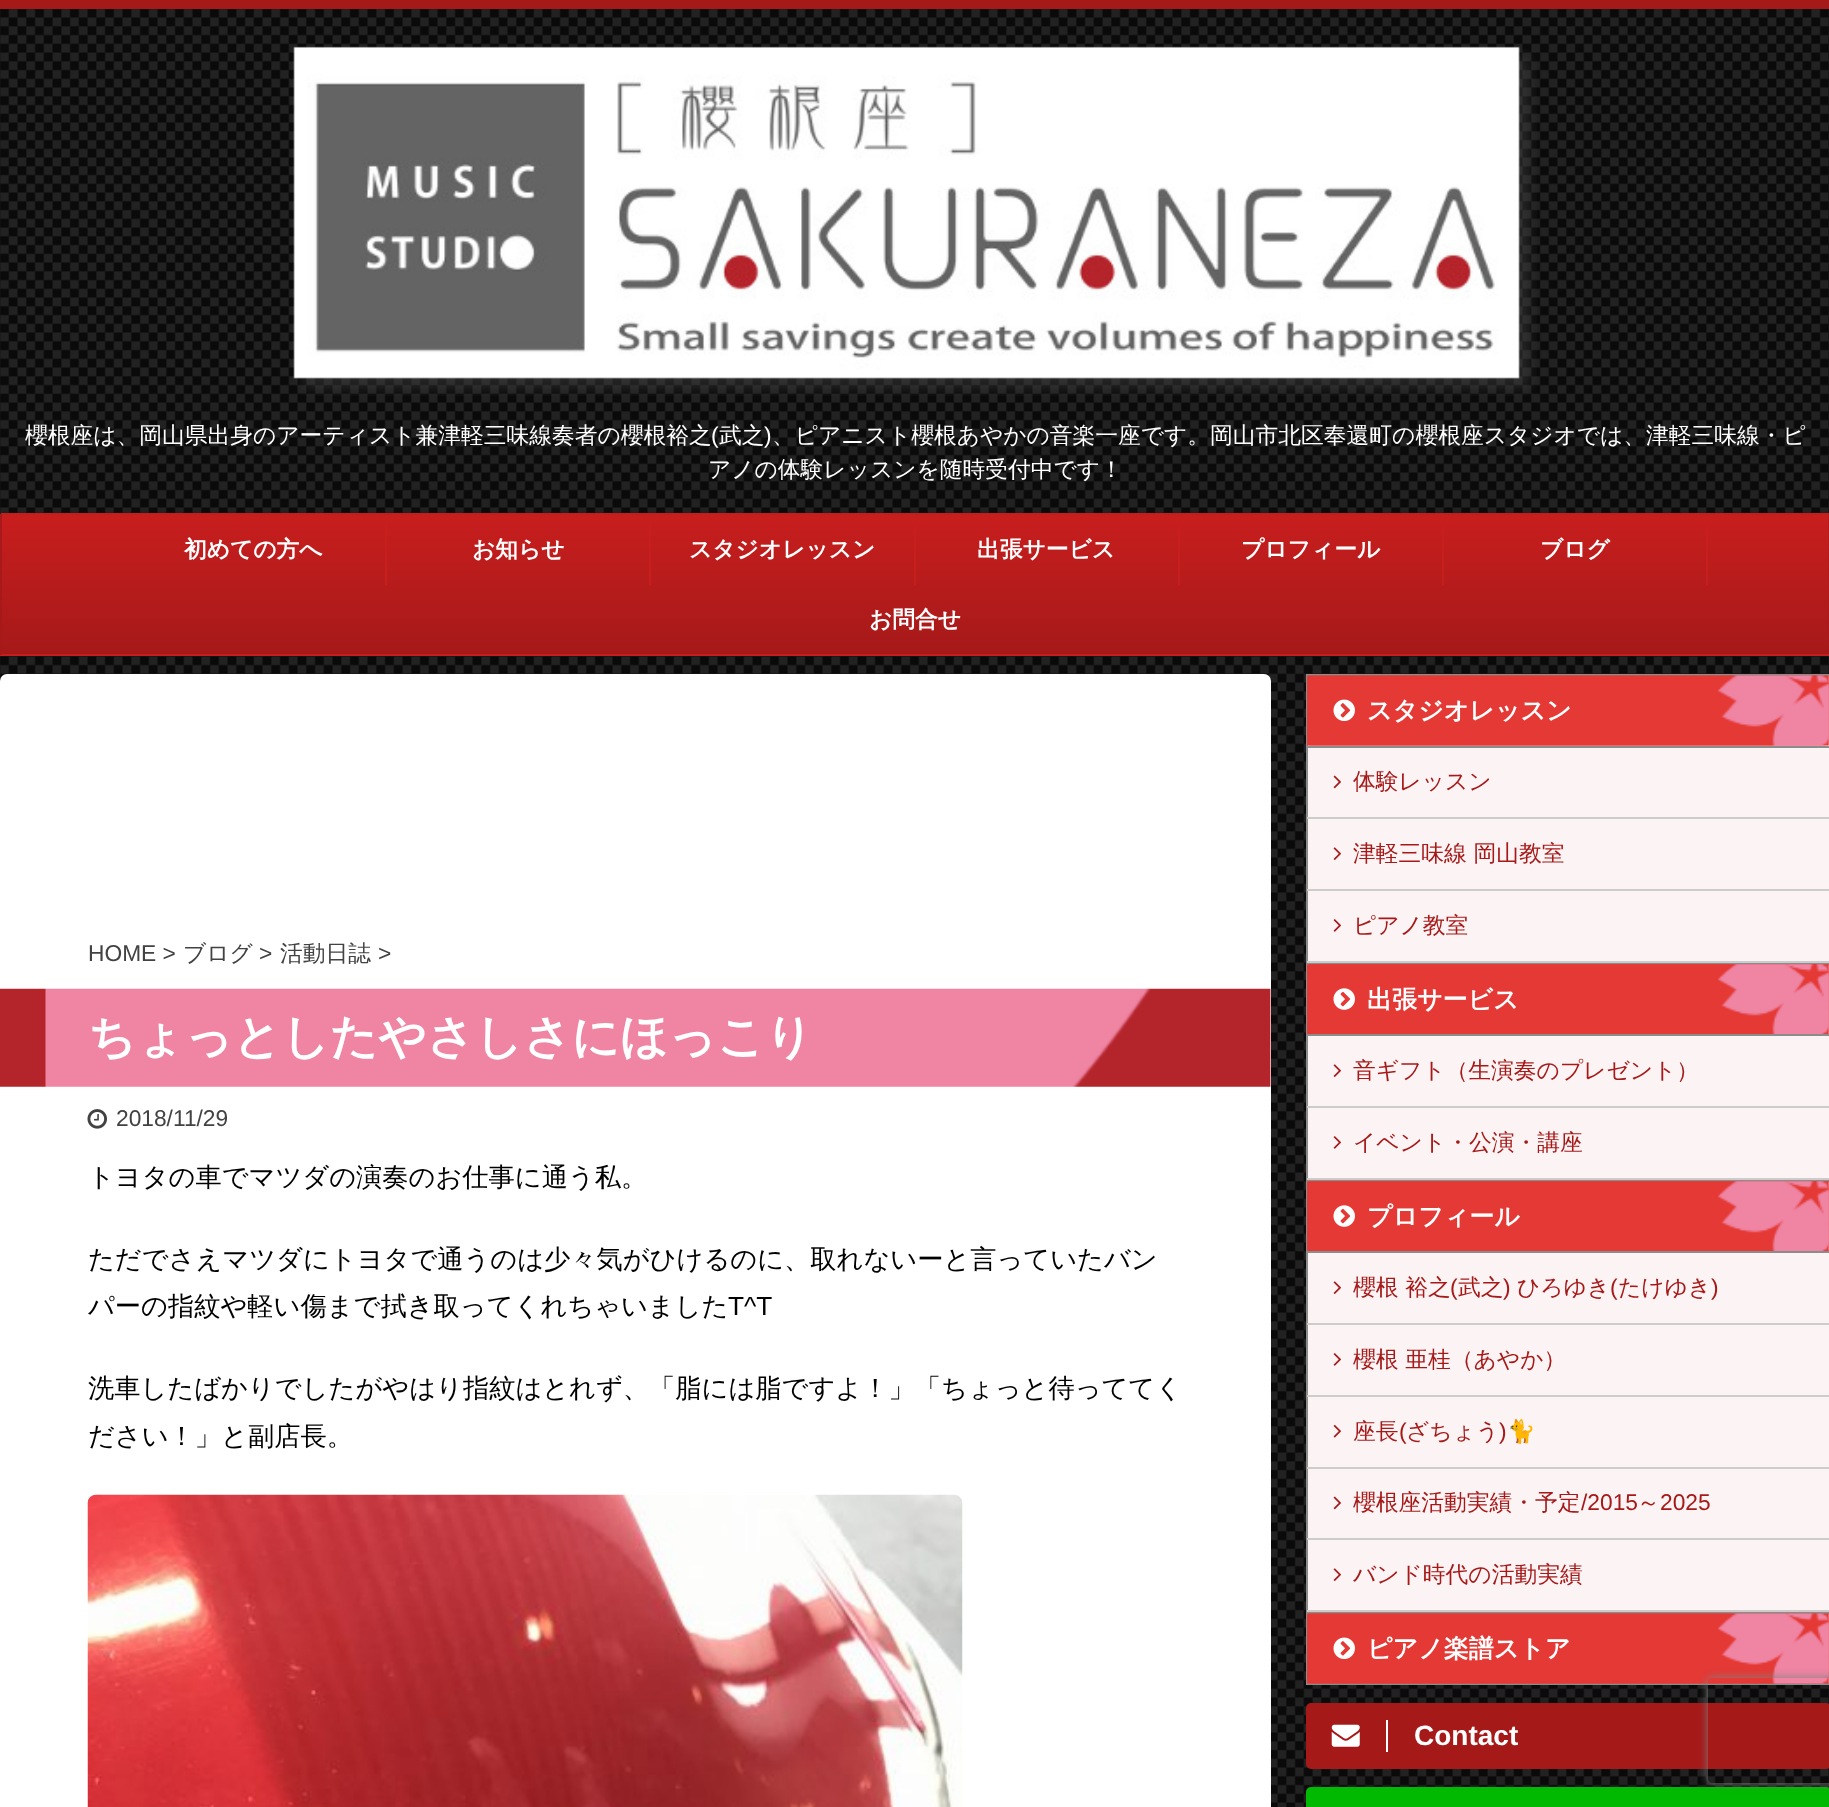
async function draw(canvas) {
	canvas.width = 1829;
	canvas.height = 1807;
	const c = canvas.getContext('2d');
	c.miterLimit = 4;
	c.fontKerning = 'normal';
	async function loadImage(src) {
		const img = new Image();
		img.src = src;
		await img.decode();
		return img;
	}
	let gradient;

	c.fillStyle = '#0a0a0a';
	c.fillRect(0, 0, 1829, 1807);
	c.drawImage(await loadImage('img1.png'), 0, 9, 1829, 1798);
	c.fillStyle = '#a61919';
	c.fillRect(0, 0, 1829, 9);
	c.drawImage(await loadImage('img2.png'), 293, 46, 1244, 350);
	c.font = '500 22.75px WenQuanYi Zen Hei';
	c.fillStyle = '#fff';
	c.fillText('櫻根座は、岡山県出身のアーティスト兼津軽三味線奏者の櫻根裕之', 25, 443);
	c.font = '22.75px Liberation Sans';
	c.fillText('(', 711, 443);
	c.font = '500 22.75px WenQuanYi Zen Hei';
	c.fillText('武之', 719, 443);
	c.font = '22.75px Liberation Sans';
	c.fillText(')', 764, 443);
	c.font = '500 22.75px WenQuanYi Zen Hei';
	c.fillText('、ピアニスト櫻根あやかの音楽一座です。岡山市北区奉還町の櫻根座スタジオでは、津軽三味線・ピ', 772, 443);
	c.fillText('アノの体験レッスンを随時受付中です！', 708, 477);
	gradient = c.createLinearGradient(915, 374, 915, 515);
	gradient.addColorStop(0, '#c81e1e');
	gradient.addColorStop(1, '#a61919');
	c.fillStyle = gradient;
	c.beginPath();
	c.moveTo(2, 513);
	c.lineTo(1829, 513);
	c.bezierCurveTo(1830, 513, 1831, 514, 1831, 515);
	c.lineTo(0, 515);
	c.bezierCurveTo(0, 514, 1, 513, 2, 513);
	c.closePath();
	c.fill();
	gradient = c.createLinearGradient(915, 514, 915, 655);
	gradient.addColorStop(0, '#c81e1e');
	gradient.addColorStop(1, '#a61919');
	c.fillStyle = gradient;
	c.fillRect(0, 515, 1829, 140);
	gradient = c.createLinearGradient(915, 654, 915, 795);
	gradient.addColorStop(0, '#c81e1e');
	gradient.addColorStop(1, '#a61919');
	c.fillStyle = gradient;
	c.fillRect(0, 655, 1829, 1);
	c.fillStyle = '#c81e1ee6';
	c.fillRect(1, 513, 1828, 2);
	c.beginPath();
	c.moveTo(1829.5, 514);
	c.lineTo(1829.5, 655);
	c.strokeStyle = '#a61919';
	c.lineWidth = 1.8;
	c.stroke();
	for (const [x, y, w, h, color] of [
		[1, 654, 1828, 1, '#c81e1ee6'],
		[0, 514, 2, 141, '#a61919e6'],
		[385, 524, 2, 61, '#c81e1e'],
	]) {
		c.fillStyle = color;
		c.fillRect(x, y, w, h);
	}
	c.font = 'bold 22.75px WenQuanYi Zen Hei';
	c.fillStyle = '#fff';
	c.fillText('初めての方へ', 184, 557);
	c.fillStyle = '#c81e1e';
	c.fillRect(649, 524, 2, 61);
	c.fillStyle = '#fff';
	c.fillText('お知らせ', 472, 557);
	c.fillStyle = '#c81e1e';
	c.fillRect(914, 524, 2, 61);
	c.fillStyle = '#fff';
	c.fillText('スタジオレッスン', 689, 557);
	c.fillStyle = '#c81e1e';
	c.fillRect(1178, 524, 2, 61);
	c.fillStyle = '#fff';
	c.fillText('出張サービス', 977, 557);
	c.fillStyle = '#c81e1e';
	c.fillRect(1442, 524, 2, 61);
	c.fillStyle = '#fff';
	c.fillText('プロフィール', 1241, 557);
	c.fillStyle = '#c81e1e';
	c.fillRect(1706, 524, 2, 61);
	c.fillStyle = '#fff';
	c.fillText('ブログ', 1540, 557);
	c.fillText('お問合せ', 869, 627);
	c.beginPath();
	c.roundRect(0, 674, 1271, 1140, 7);
	c.fill();
	c.font = '22.75px Liberation Sans';
	c.fillStyle = '#424242';
	c.fillText('HOME >', 88, 961);
	c.font = '500 22.75px WenQuanYi Zen Hei';
	c.fillText('ブログ', 183, 961);
	c.font = '22.75px Liberation Sans';
	c.fillText('>', 259, 961);
	c.font = '500 22.75px WenQuanYi Zen Hei';
	c.fillText('活動日誌', 280, 961);
	c.font = '22.75px Liberation Sans';
	c.fillText('>', 378, 961);
	c.drawImage(await loadImage('img3.png'), 0, 988, 1271, 99);
	c.font = 'bold 47.25px WenQuanYi Zen Hei';
	c.fillStyle = '#fff';
	c.fillText('ちょっとしたやさしさにほっこり', 88, 1053);
	c.drawImage(await loadImage('img4.png'), 87, 1109, 20, 20);
	c.font = '22.75px Liberation Sans';
	c.fillStyle = '#424242';
	c.fillText('2018/11/29', 116, 1126);
	c.font = '500 26.25px WenQuanYi Zen Hei';
	c.fillStyle = '#000';
	for (const [text, x, y] of [
		['トヨタの車でマツダの演奏のお仕事に通う私。', 88, 1186],
		['ただでさえマツダにトヨタで通うのは少々気がひけるのに、取れないーと言っていたバン', 88, 1268],
		['パーの指紋や軽い傷まで拭き取ってくれちゃいました', 88, 1315],
	]) {
		c.fillText(text, x, y);
	}
	c.font = '26.25px Liberation Sans';
	c.fillText('T^T', 728, 1315);
	c.font = '500 26.25px WenQuanYi Zen Hei';
	c.fillText('洗車したばかりでしたがやはり指紋はとれず、「脂には脂ですよ！」「ちょっと待っててく', 88, 1397);
	c.fillText('ださい！」と副店長。', 88, 1445);
	c.drawImage(await loadImage('img5.png'), 87, 1494, 876, 313);
	for (const [x, y, w, h, color] of [
		[1308, 676, 521, 1007, '#fcf4f4'],
		[1306, 674, 523, 2, '#8c8c8c'],
		[1306, 674, 2, 289, '#8c8c8c'],
	]) {
		c.fillStyle = color;
		c.fillRect(x, y, w, h);
	}
	c.drawImage(await loadImage('img6.png'), 1307, 675, 522, 71);
	c.drawImage(await loadImage('img7.png'), 1333, 699, 22, 22);
	c.font = 'bold 25px WenQuanYi Zen Hei';
	c.fillStyle = '#fff';
	c.fillText('スタジオレッスン', 1367, 719);
	c.fillStyle = '#8c8c8c';
	c.fillRect(1307, 746, 522, 2);
	c.fillStyle = '#ccc';
	c.fillRect(1307, 817, 522, 2);
	c.drawImage(await loadImage('img8.png'), 1333, 775, 8, 14);
	c.font = '500 22.75px WenQuanYi Zen Hei';
	c.fillStyle = '#a61919';
	c.fillText('体験レッスン', 1353, 789);
	c.fillStyle = '#ccc';
	c.fillRect(1307, 889, 522, 2);
	c.drawImage(await loadImage('img9.png'), 1333, 847, 8, 13);
	c.fillStyle = '#a61919';
	c.fillText('津軽三味線 岡山教室', 1353, 861);
	c.fillStyle = '#ccc';
	c.fillRect(1307, 961, 522, 2);
	c.drawImage(await loadImage('img10.png'), 1333, 919, 8, 13);
	c.fillStyle = '#a61919';
	c.fillText('ピアノ教室', 1353, 933);
	c.fillStyle = '#8c8c8c';
	c.fillRect(1306, 963, 523, 2);
	c.fillRect(1306, 963, 2, 217);
	c.drawImage(await loadImage('img11.png'), 1307, 964, 522, 70);
	c.drawImage(await loadImage('img12.png'), 1333, 988, 22, 22);
	c.font = 'bold 25px WenQuanYi Zen Hei';
	c.fillStyle = '#fff';
	c.fillText('出張サービス', 1367, 1008);
	c.fillStyle = '#8c8c8c';
	c.fillRect(1307, 1034, 522, 2);
	c.fillStyle = '#ccc';
	c.fillRect(1307, 1106, 522, 2);
	c.drawImage(await loadImage('img9.png'), 1333, 1064, 8, 13);
	c.font = '500 22.75px WenQuanYi Zen Hei';
	c.fillStyle = '#a61919';
	c.fillText('音ギフト（生演奏のプレゼント）', 1353, 1078);
	c.fillStyle = '#ccc';
	c.fillRect(1307, 1178, 522, 2);
	c.drawImage(await loadImage('img10.png'), 1333, 1136, 8, 13);
	c.fillStyle = '#a61919';
	c.fillText('イベント・公演・講座', 1353, 1150);
	c.fillStyle = '#8c8c8c';
	c.fillRect(1306, 1180, 523, 2);
	c.fillRect(1306, 1180, 2, 432);
	c.drawImage(await loadImage('img13.png'), 1307, 1181, 522, 70);
	c.drawImage(await loadImage('img12.png'), 1333, 1205, 22, 22);
	c.font = 'bold 25px WenQuanYi Zen Hei';
	c.fillStyle = '#fff';
	c.fillText('プロフィール', 1367, 1225);
	c.fillStyle = '#8c8c8c';
	c.fillRect(1307, 1251, 522, 2);
	c.fillStyle = '#ccc';
	c.fillRect(1307, 1323, 522, 2);
	c.drawImage(await loadImage('img9.png'), 1333, 1281, 8, 13);
	c.font = '500 22.75px WenQuanYi Zen Hei';
	c.fillStyle = '#a61919';
	c.fillText('櫻根 裕之', 1353, 1295);
	c.font = '22.75px Liberation Sans';
	c.fillText('(', 1450, 1295);
	c.font = '500 22.75px WenQuanYi Zen Hei';
	c.fillText('武之', 1458, 1295);
	c.font = '22.75px Liberation Sans';
	c.fillText(')', 1503, 1295);
	c.font = '500 22.75px WenQuanYi Zen Hei';
	c.fillText('ひろゆき', 1517, 1295);
	c.font = '22.75px Liberation Sans';
	c.fillText('(', 1610, 1295);
	c.font = '500 22.75px WenQuanYi Zen Hei';
	c.fillText('たけゆき', 1618, 1295);
	c.font = '22.75px Liberation Sans';
	c.fillText(')', 1711, 1295);
	c.fillStyle = '#ccc';
	c.fillRect(1307, 1395, 522, 2);
	c.drawImage(await loadImage('img10.png'), 1333, 1353, 8, 13);
	c.font = '500 22.75px WenQuanYi Zen Hei';
	c.fillStyle = '#a61919';
	c.fillText('櫻根 亜桂（あやか）', 1353, 1367);
	c.fillStyle = '#ccc';
	c.fillRect(1307, 1467, 522, 2);
	c.drawImage(await loadImage('img14.png'), 1333, 1424, 8, 14);
	c.fillStyle = '#a61919';
	c.fillText('座長', 1353, 1439);
	c.font = '22.75px Liberation Sans';
	c.fillText('(', 1399, 1439);
	c.font = '500 22.75px WenQuanYi Zen Hei';
	c.fillText('ざちょう', 1406, 1439);
	c.font = '22.75px Liberation Sans';
	c.fillText(')', 1499, 1439);
	c.font = '22.75px Noto Color Emoji';
	c.fillText('🐈', 1507, 1439);
	c.fillStyle = '#ccc';
	c.fillRect(1307, 1538, 522, 2);
	c.drawImage(await loadImage('img8.png'), 1333, 1496, 8, 14);
	c.font = '500 22.75px WenQuanYi Zen Hei';
	c.fillStyle = '#a61919';
	c.fillText('櫻根座活動実績・予定', 1353, 1510);
	c.font = '22.75px Liberation Sans';
	c.fillText('/2015', 1581, 1510);
	c.font = '500 22.75px WenQuanYi Zen Hei';
	c.fillText('～', 1637, 1510);
	c.font = '22.75px Liberation Sans';
	c.fillText('2025', 1660, 1510);
	c.fillStyle = '#ccc';
	c.fillRect(1307, 1610, 522, 2);
	c.drawImage(await loadImage('img9.png'), 1333, 1568, 8, 13);
	c.font = '500 22.75px WenQuanYi Zen Hei';
	c.fillStyle = '#a61919';
	c.fillText('バンド時代の活動実績', 1353, 1582);
	c.strokeStyle = '#8c8c8c';
	c.lineWidth = 2;
	c.strokeRect(1307, 1613, 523, 71);
	c.drawImage(await loadImage('img15.png'), 1307, 1613, 522, 71);
	c.drawImage(await loadImage('img7.png'), 1333, 1637, 22, 22);
	c.font = 'bold 25px WenQuanYi Zen Hei';
	c.fillStyle = '#fff';
	c.fillText('ピアノ楽譜ストア', 1367, 1657);
	c.fillStyle = '#a61919';
	c.beginPath();
	c.roundRect(1306, 1703, 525, 66, 5);
	c.fill();
	c.drawImage(await loadImage('img16.png'), 1331, 1724, 29, 23);
	c.fillStyle = '#fff';
	c.fillRect(1386, 1720, 2, 32);
	c.font = 'bold 28px Liberation Sans';
	c.fillText('Contact', 1414, 1745);
	c.fillStyle = '#00b900';
	c.beginPath();
	c.roundRect(1306, 1787, 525, 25, 5);
	c.fill();
	c.save();
	c.beginPath();
	c.moveTo(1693, 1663);
	c.lineTo(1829, 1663);
	c.lineTo(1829, 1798);
	c.lineTo(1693, 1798);
	c.closePath();
	c.moveTo(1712, 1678);
	c.lineTo(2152, 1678);
	c.bezierCurveTo(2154, 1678, 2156, 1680, 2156, 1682);
	c.lineTo(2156, 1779);
	c.bezierCurveTo(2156, 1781, 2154, 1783, 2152, 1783);
	c.lineTo(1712, 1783);
	c.bezierCurveTo(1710, 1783, 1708, 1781, 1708, 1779);
	c.lineTo(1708, 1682);
	c.bezierCurveTo(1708, 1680, 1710, 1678, 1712, 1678);
	c.closePath();
	c.clip('evenodd');
	c.fillStyle = '#808080';
	c.filter = 'blur(4.5px)';
	c.beginPath();
	c.roundRect(1708, 1678, 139, 105, 4);
	c.fill();
	c.filter = 'none';
	c.restore();
}

draw(document.querySelector('canvas'));
